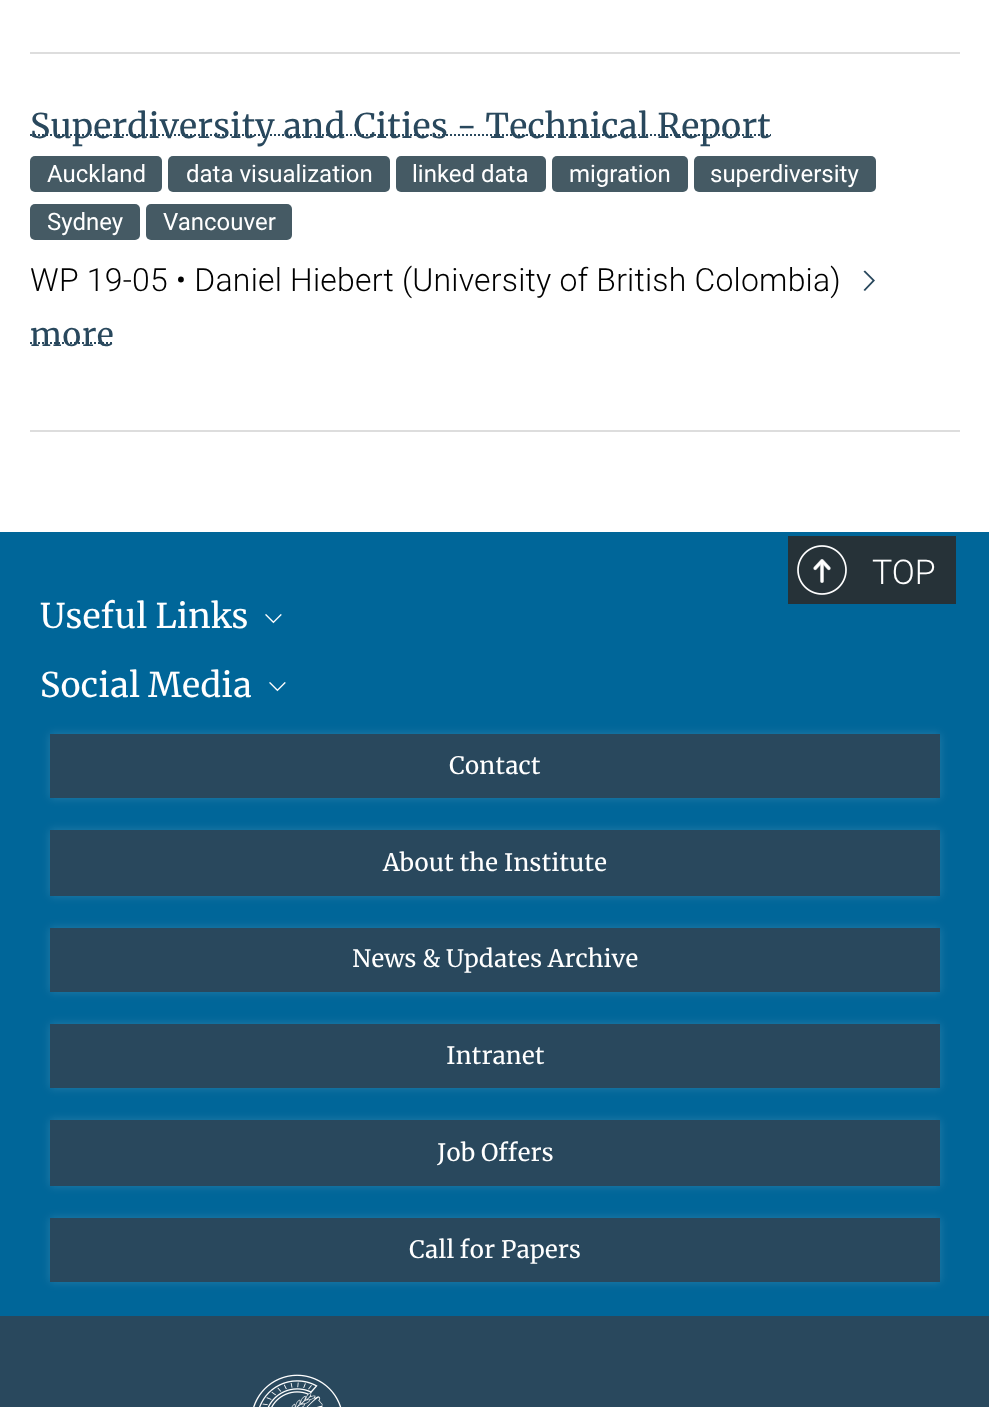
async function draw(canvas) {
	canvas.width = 989;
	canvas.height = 1407;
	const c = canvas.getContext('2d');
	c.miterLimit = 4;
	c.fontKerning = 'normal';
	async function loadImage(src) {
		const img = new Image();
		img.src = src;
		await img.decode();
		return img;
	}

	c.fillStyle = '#fff';
	c.fillRect(0, 0, 989, 1407);
	c.fillStyle = '#ddd';
	c.fillRect(30, 52, 930, 2);
	c.fillRect(30, 430, 930, 2);
	c.beginPath();
	c.moveTo(30, 135);
	c.lineTo(771, 135);
	c.strokeStyle = '#29485d';
	c.lineWidth = 2;
	c.setLineDash([2, 2]);
	c.stroke();
	c.font = '34px Merriweather';
	c.fillStyle = '#29485d';
	c.fillText('Superdiversity and Cities - Technical Report', 30, 138);
	c.fillStyle = '#455a64';
	c.beginPath();
	c.roundRect(30, 156, 132, 36, 5);
	c.fill();
	c.font = '24px Roboto';
	c.fillStyle = '#fff';
	c.fillText('Auckland', 47, 182);
	c.fillStyle = '#455a64';
	c.beginPath();
	c.roundRect(168, 156, 222, 36, 5);
	c.fill();
	c.fillStyle = '#fff';
	c.fillText('data visualization', 186, 182);
	c.fillStyle = '#455a64';
	c.beginPath();
	c.roundRect(396, 156, 150, 36, 5);
	c.fill();
	c.fillStyle = '#fff';
	c.fillText('linked data', 412, 182);
	c.fillStyle = '#455a64';
	c.beginPath();
	c.roundRect(552, 156, 136, 36, 5);
	c.fill();
	c.fillStyle = '#fff';
	c.fillText('migration', 569, 182);
	c.fillStyle = '#455a64';
	c.beginPath();
	c.roundRect(694, 156, 182, 36, 5);
	c.fill();
	c.fillStyle = '#fff';
	c.fillText('superdiversity', 710, 182);
	c.fillStyle = '#455a64';
	c.beginPath();
	c.roundRect(30, 204, 110, 36, 5);
	c.fill();
	c.fillStyle = '#fff';
	c.fillText('Sydney', 47, 230);
	c.fillStyle = '#455a64';
	c.beginPath();
	c.roundRect(146, 204, 146, 36, 5);
	c.fill();
	c.fillStyle = '#fff';
	c.fillText('Vancouver', 163, 230);
	c.letterSpacing = '0.2px';
	c.font = '300 32px Roboto';
	c.fillStyle = '#000';
	c.fillText('WP 19-05 • Daniel Hiebert (University of British Colombia)', 30, 291);
	c.fillStyle = '#29485d';
	c.beginPath();
	c.moveTo(863.5, 290);
	c.lineTo(872.5, 280.5);
	c.lineTo(863.5, 271.5);
	c.lineTo(865, 270.5);
	c.lineTo(875, 280.5);
	c.lineTo(865, 291);
	c.closePath();
	c.fill();
	c.beginPath();
	c.moveTo(30, 343);
	c.lineTo(114, 343);
	c.stroke();
	c.font = '32px Merriweather';
	c.fillText('more', 30, 346);
	c.fillStyle = '#069';
	c.fillRect(0, 532, 989, 784);
	c.fillStyle = '#263238';
	c.fillRect(788, 536, 168, 68);
	c.drawImage(await loadImage('img1.png'), 813, 559, 18, 24);
	c.drawImage(await loadImage('img2.png'), 797, 545, 50, 50);
	c.letterSpacing = '0px';
	c.font = '300 34px Roboto';
	c.fillStyle = '#fff';
	c.fillText('TOP', 872, 584);
	c.font = '34px Merriweather';
	c.fillText('Useful Links', 40, 628);
	c.drawImage(await loadImage('img3.png'), 265, 614, 17, 10);
	c.fillText('Social Media', 40, 697);
	c.drawImage(await loadImage('img3.png'), 269, 682, 17, 10);
	c.fillStyle = '#ffffff26';
	c.filter = 'blur(5px)';
	c.beginPath();
	c.rect(50, 734, 890, 64);
	c.fill();
	c.filter = 'none';
	c.fillStyle = '#29485d';
	c.fillRect(50, 734, 890, 64);
	c.font = '24px Merriweather';
	c.fillStyle = '#fff';
	c.fillText('Contact', 449, 774);
	c.fillStyle = '#ffffff26';
	c.filter = 'blur(5px)';
	c.beginPath();
	c.rect(50, 830, 890, 66);
	c.fill();
	c.filter = 'none';
	c.fillStyle = '#29485d';
	c.fillRect(50, 830, 890, 66);
	c.fillStyle = '#fff';
	c.fillText('About the Institute', 383, 871);
	c.fillStyle = '#ffffff26';
	c.filter = 'blur(5px)';
	c.beginPath();
	c.rect(50, 928, 890, 64);
	c.fill();
	c.filter = 'none';
	c.fillStyle = '#29485d';
	c.fillRect(50, 928, 890, 64);
	c.fillStyle = '#fff';
	c.fillText('News & Updates Archive', 352, 967);
	c.fillStyle = '#ffffff26';
	c.filter = 'blur(5px)';
	c.beginPath();
	c.rect(50, 1024, 890, 64);
	c.fill();
	c.filter = 'none';
	c.fillStyle = '#29485d';
	c.fillRect(50, 1024, 890, 64);
	c.fillStyle = '#fff';
	c.fillText('Intranet', 446, 1064);
	c.fillStyle = '#ffffff26';
	c.filter = 'blur(5px)';
	c.beginPath();
	c.rect(50, 1120, 890, 66);
	c.fill();
	c.filter = 'none';
	c.fillStyle = '#29485d';
	c.fillRect(50, 1120, 890, 66);
	c.fillStyle = '#fff';
	c.fillText('Job Offers', 437, 1161);
	c.fillStyle = '#ffffff26';
	c.filter = 'blur(5px)';
	c.beginPath();
	c.rect(50, 1218, 890, 64);
	c.fill();
	c.filter = 'none';
	c.fillStyle = '#29485d';
	c.fillRect(50, 1218, 890, 64);
	c.fillStyle = '#fff';
	c.fillText('Call for Papers', 409, 1258);
	c.fillStyle = '#29485d';
	c.fillRect(0, 1316, 989, 91);
	c.drawImage(await loadImage('img4.png'), 253, 1374, 89, 33);
}

draw(document.querySelector('canvas'));
